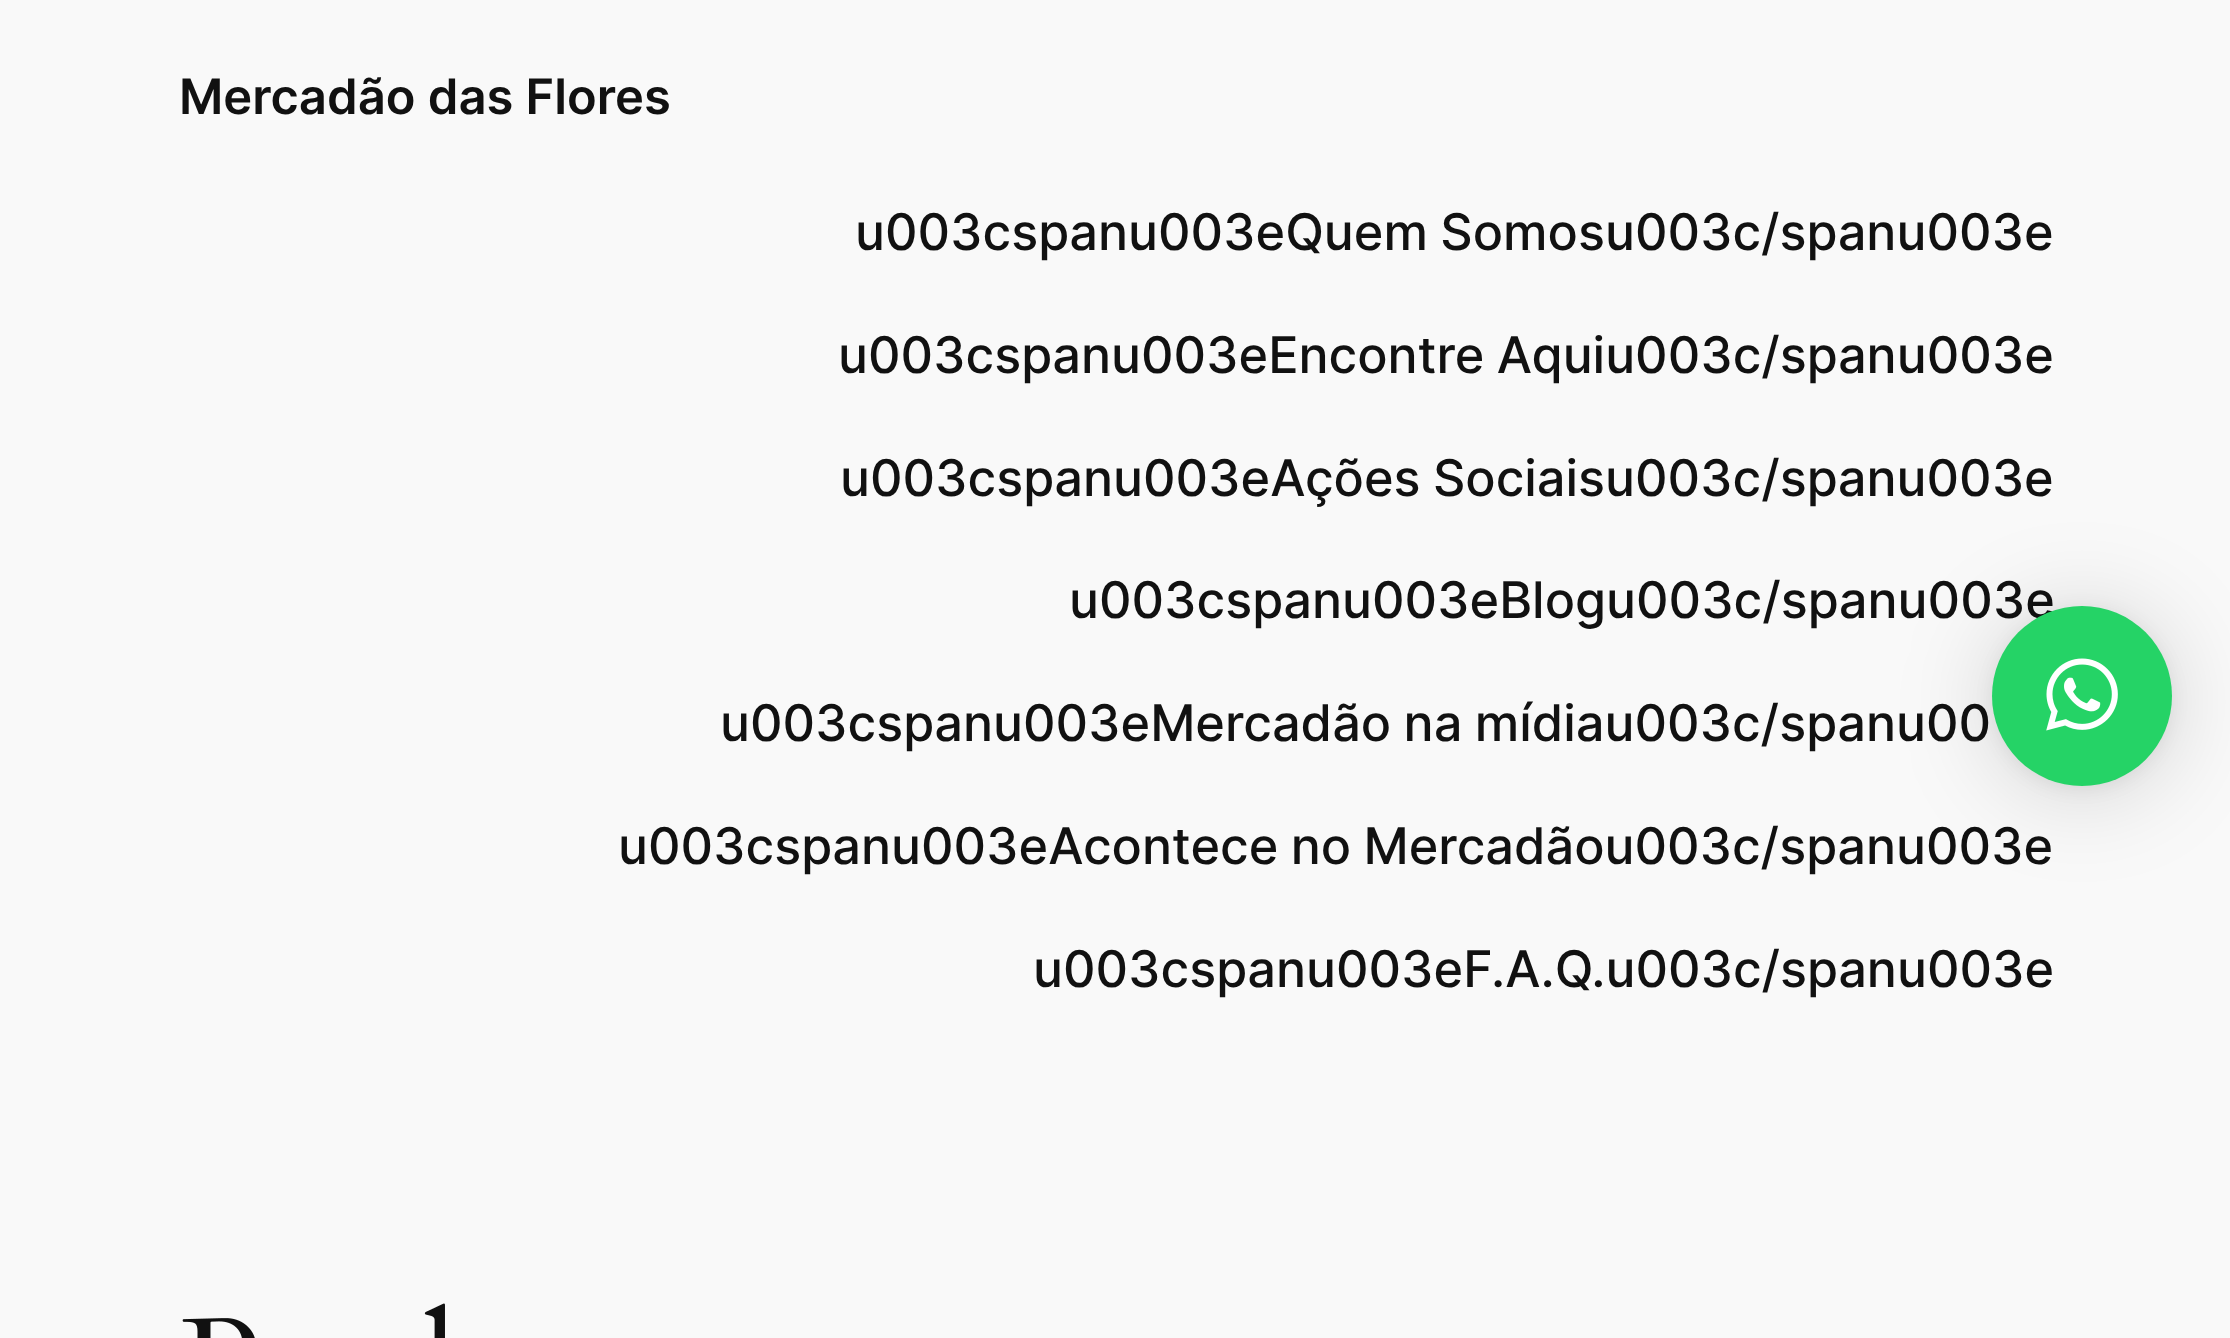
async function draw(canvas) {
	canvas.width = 2230;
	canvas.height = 1338;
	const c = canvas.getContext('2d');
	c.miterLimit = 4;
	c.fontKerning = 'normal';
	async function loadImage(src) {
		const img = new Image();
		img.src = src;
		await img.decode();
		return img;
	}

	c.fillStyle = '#f9f9f9';
	c.fillRect(0, 0, 2230, 1338);
	c.font = '600 48.9px Inter';
	c.fillStyle = '#111';
	c.fillText('Mercadão das Flores', 179, 114);
	c.wordSpacing = '-1px';
	c.font = '500 50.4px Inter';
	for (const [text, x, y] of [
		['u003cspanu003eQuem Somosu003c/spanu003e', 855, 250],
		['u003cspanu003eEncontre Aquiu003c/spanu003e', 838, 373],
		['u003cspanu003eAções Sociaisu003c/spanu003e', 840, 496],
	]) {
		c.fillText(text, x, y);
	}
	c.wordSpacing = '0px';
	c.fillText('u003cspanu003eBlogu003c/spanu003e', 1069, 618);
	c.wordSpacing = '-1px';
	c.fillText('u003cspanu003eMercadão na mídiau003c/spanu00', 720, 741);
	c.fillText('u003cspanu003eAcontece no Mercadãou003c/spanu003e', 618, 864);
	c.wordSpacing = '0px';
	c.fillText('u003cspanu003eF.A.Q.u003c/spanu003e', 1033, 987);
	c.drawImage(await loadImage('img1.png'), 182, 1303, 263, 35);
	c.fillStyle = '#00000029';
	c.filter = 'blur(48px)';
	c.beginPath();
	c.roundRect(1992, 612, 180, 180, 90);
	c.fill();
	c.filter = 'none';
	c.fillStyle = '#0000000f';
	c.filter = 'blur(9px)';
	c.beginPath();
	c.roundRect(1992, 609, 180, 180, 90);
	c.fill();
	c.filter = 'none';
	c.fillStyle = '#25d366';
	c.beginPath();
	c.arc(2082, 696, 90, 0, 2 * Math.PI);
	c.fill();
	c.drawImage(await loadImage('img2.png'), 2046, 658, 72, 73);
}

draw(document.querySelector('canvas'));
